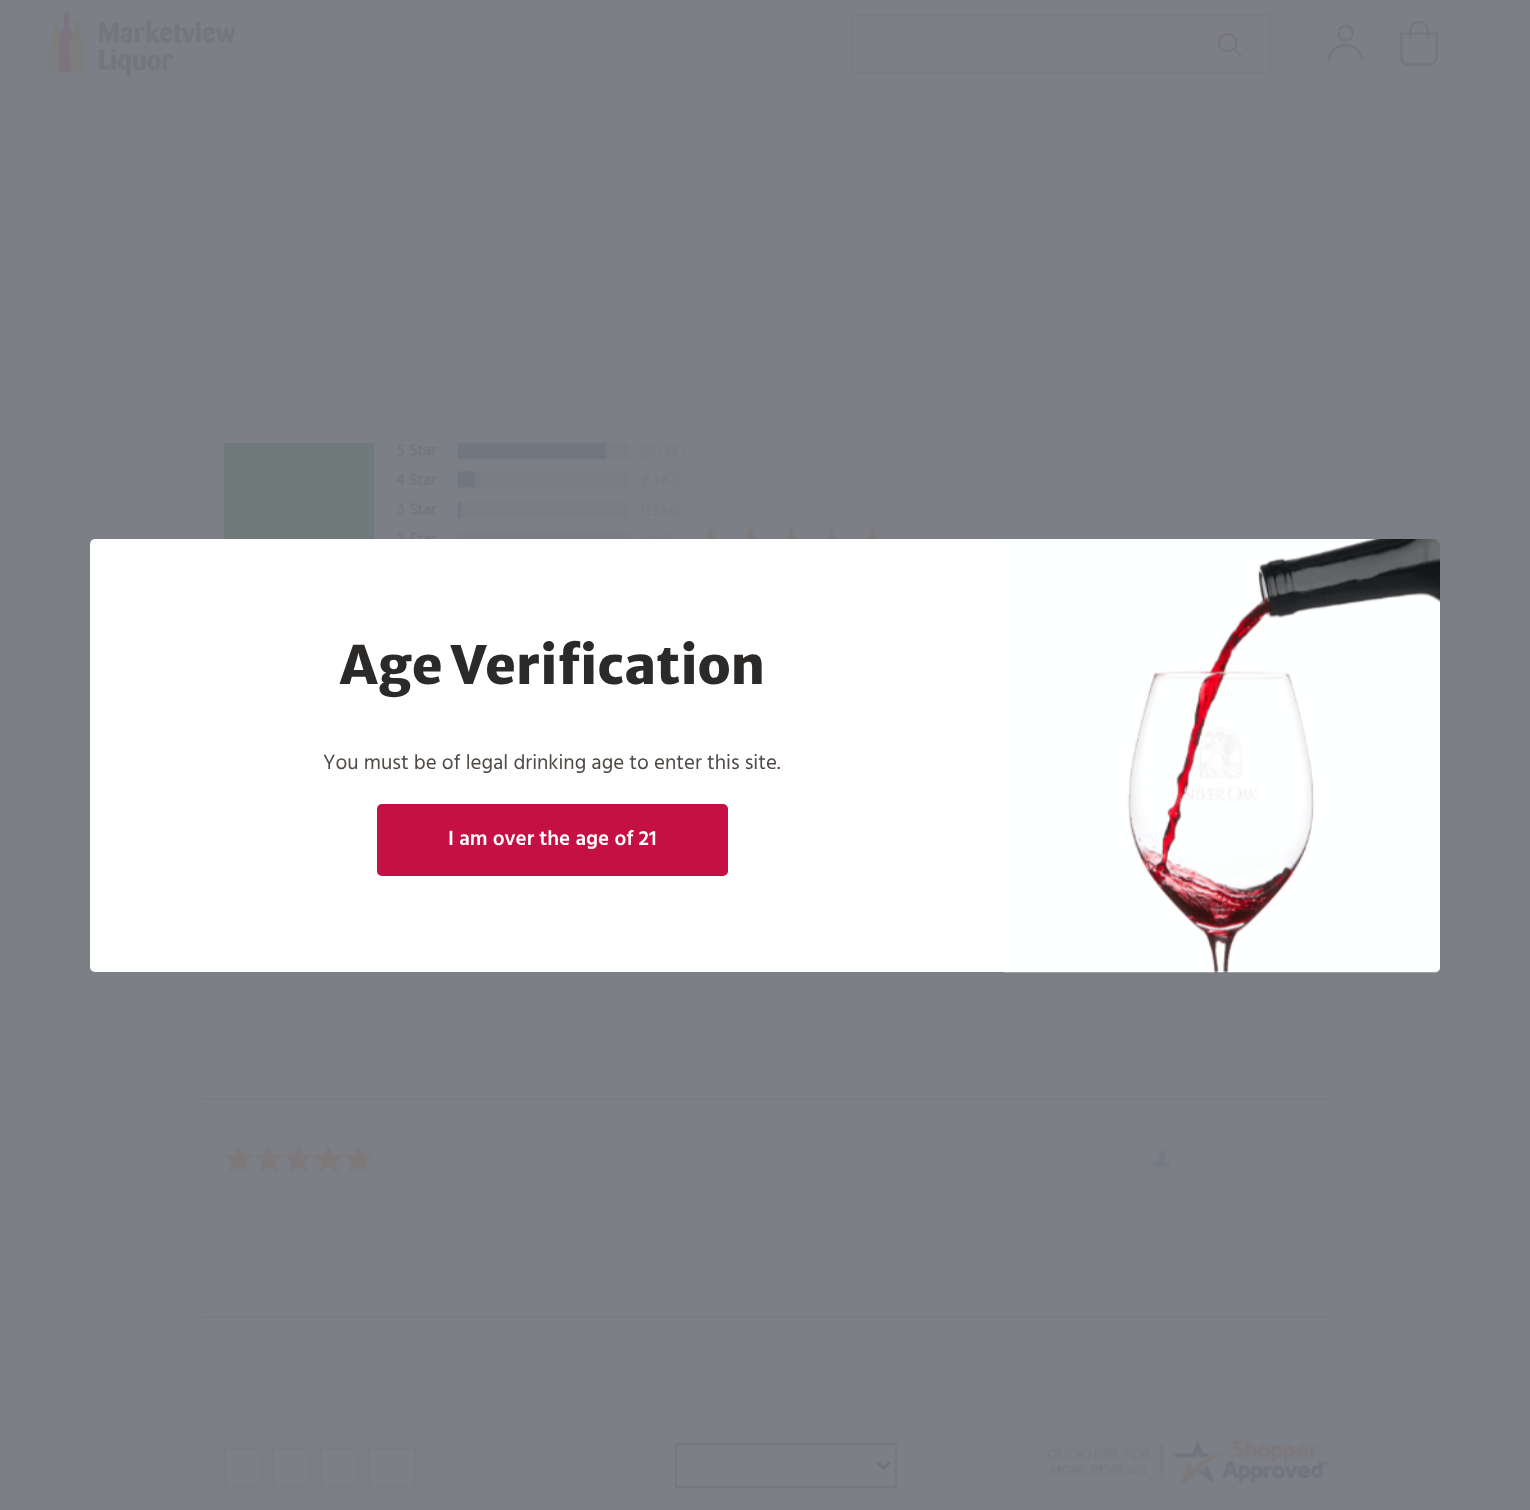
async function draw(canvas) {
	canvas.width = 1530;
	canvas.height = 1510;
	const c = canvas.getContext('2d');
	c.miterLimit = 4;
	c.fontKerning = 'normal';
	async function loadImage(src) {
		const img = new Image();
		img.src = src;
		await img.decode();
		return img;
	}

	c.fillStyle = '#7d7f86';
	c.fillRect(0, 0, 1530, 1510);
	c.drawImage(await loadImage('img1.png'), 48, 12, 187, 65);
	c.beginPath();
	c.roundRect(852, 15, 418, 58, 4);
	c.strokeStyle = '#7a7b83';
	c.lineWidth = 2;
	c.stroke();
	c.drawImage(await loadImage('img2.png'), 1218, 33, 24, 24);
	c.drawImage(await loadImage('img3.png'), 1327, 24, 37, 37);
	c.drawImage(await loadImage('img4.png'), 1400, 20, 38, 46);
	c.fillStyle = '#707a7b';
	c.fillRect(224, 443, 150, 96);
	c.drawImage(await loadImage('img5.png'), 396, 442, 289, 97);
	c.drawImage(await loadImage('img6.png'), 704, 526, 12, 13);
	c.drawImage(await loadImage('img7.png'), 745, 526, 12, 13);
	c.drawImage(await loadImage('img8.png'), 785, 526, 12, 13);
	c.drawImage(await loadImage('img9.png'), 826, 526, 12, 13);
	c.drawImage(await loadImage('img8.png'), 866, 526, 12, 13);
	c.fillStyle = '#7a7c84';
	c.fillRect(201, 1098, 1130, 2);
	c.fillRect(201, 1316, 1130, 2);
	c.drawImage(await loadImage('img10.png'), 223, 1144, 31, 29);
	c.drawImage(await loadImage('img11.png'), 253, 1144, 31, 29);
	c.drawImage(await loadImage('img12.png'), 283, 1144, 31, 29);
	c.drawImage(await loadImage('img11.png'), 313, 1144, 31, 29);
	c.drawImage(await loadImage('img11.png'), 343, 1144, 31, 29);
	c.drawImage(await loadImage('img13.png'), 1152, 1150, 18, 17);
	c.strokeStyle = '#7a7c84';
	c.strokeRect(225, 1449, 37, 37);
	c.strokeRect(273, 1449, 37, 37);
	c.strokeRect(321, 1449, 37, 37);
	c.strokeRect(369, 1449, 46, 37);
	c.beginPath();
	c.roundRect(676, 1444, 220, 43, 2);
	c.strokeStyle = '#767880';
	c.stroke();
	c.beginPath();
	c.moveTo(877.5, 1462.5);
	c.lineTo(883.5, 1468.5);
	c.lineTo(889.5, 1462.5);
	c.strokeStyle = '#70727a';
	c.lineWidth = 3;
	c.stroke();
	c.drawImage(await loadImage('img14.png'), 1046, 1439, 282, 45);
	c.fillStyle = '#fff';
	c.beginPath();
	c.roundRect(90, 539, 1350, 433, 5);
	c.fill();
	c.drawImage(await loadImage('img15.png'), 1003, 539, 437, 434);
	c.font = '800 52.5px Merriweather Sans';
	c.fillStyle = '#2c2a29';
	c.fillText('Age Verification', 340, 684);
	c.font = '21px Hind';
	c.fillStyle = '#504a47';
	c.fillText('You must be of legal drinking age to enter this site.', 323, 769);
	c.fillStyle = '#c41043';
	c.beginPath();
	c.roundRect(377, 804, 351, 72, 5);
	c.fill();
	c.font = '600 21px Hind';
	c.fillStyle = '#fff';
	c.fillText('I am over the age of 21', 448, 845);
}

draw(document.querySelector('canvas'));
